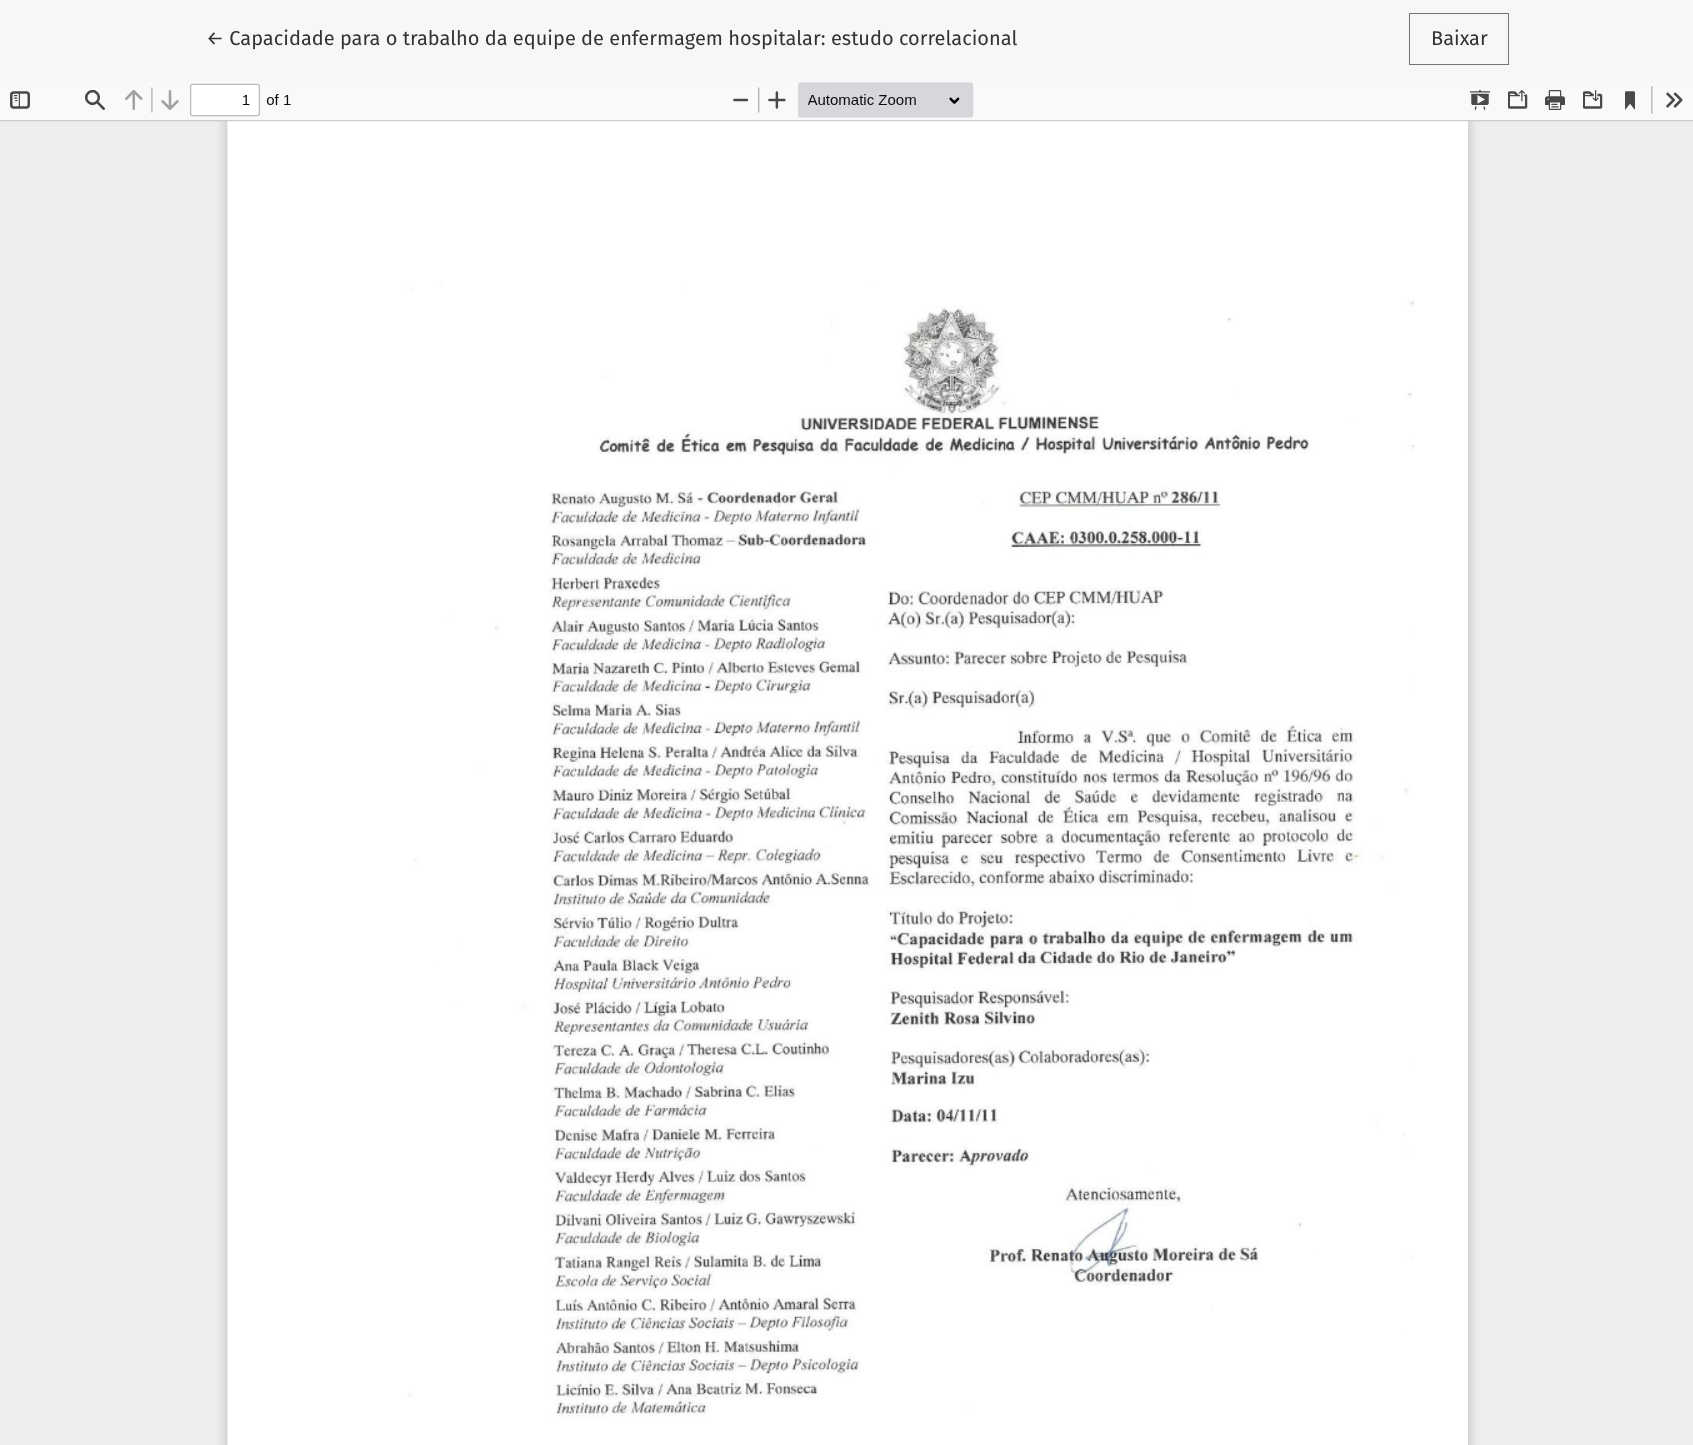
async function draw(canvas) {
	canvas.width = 1693;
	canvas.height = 1445;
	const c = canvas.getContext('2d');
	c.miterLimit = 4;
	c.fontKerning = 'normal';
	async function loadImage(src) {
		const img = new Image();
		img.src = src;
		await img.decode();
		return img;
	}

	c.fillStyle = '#f7f7f7';
	c.fillRect(0, 0, 1693, 1445);
	c.font = '20px Fira Sans';
	c.fillStyle = '#333';
	c.fillText('← Capacidade para o trabalho da equipe de enfermagem hospitalar: estudo correlacional', 206, 45);
	c.strokeStyle = '#757575';
	c.strokeRect(1409.5, 13.5, 99, 51);
	c.fillText('Baixar', 1431, 45);
	c.drawImage(await loadImage('img1.png'), 0, 82, 1693, 1363);
}

draw(document.querySelector('canvas'));
